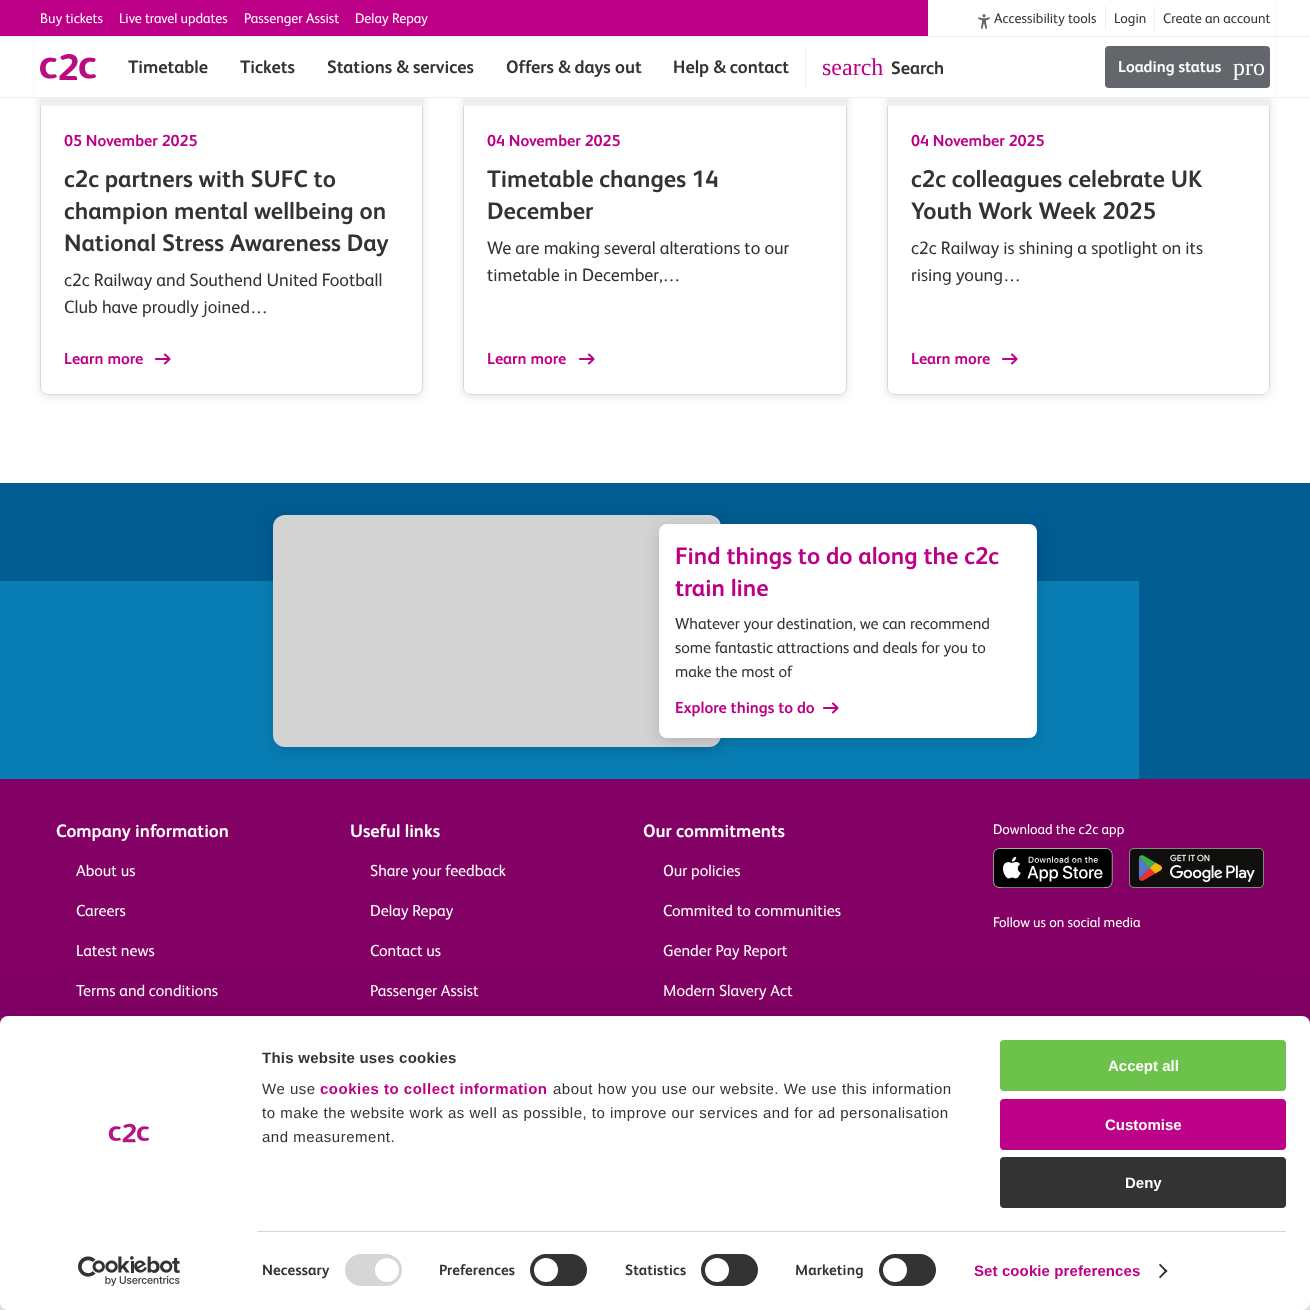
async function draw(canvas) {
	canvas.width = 1310;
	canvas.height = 1310;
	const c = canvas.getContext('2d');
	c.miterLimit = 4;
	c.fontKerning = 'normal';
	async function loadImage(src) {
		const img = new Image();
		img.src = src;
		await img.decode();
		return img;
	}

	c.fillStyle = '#fff';
	c.fillRect(0, 0, 1310, 1310);
	c.save();
	c.beginPath();
	c.moveTo(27, 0);
	c.lineTo(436, 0);
	c.lineTo(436, 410);
	c.lineTo(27, 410);
	c.closePath();
	c.moveTo(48, -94);
	c.lineTo(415, -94);
	c.bezierCurveTo(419.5, -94, 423, -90.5, 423, -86);
	c.lineTo(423, 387);
	c.bezierCurveTo(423, 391.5, 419.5, 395, 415, 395);
	c.lineTo(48, 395);
	c.bezierCurveTo(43.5, 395, 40, 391.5, 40, 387);
	c.lineTo(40, -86);
	c.bezierCurveTo(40, -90.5, 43.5, -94, 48, -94);
	c.closePath();
	c.clip('evenodd');
	c.fillStyle = '#0000001a';
	c.filter = 'blur(4px)';
	c.beginPath();
	c.roundRect(40, -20, 383, 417, 8);
	c.fill();
	c.filter = 'none';
	c.restore();
	c.save();
	c.beginPath();
	c.moveTo(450, 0);
	c.lineTo(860, 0);
	c.lineTo(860, 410);
	c.lineTo(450, 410);
	c.closePath();
	c.moveTo(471, -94);
	c.lineTo(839, -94);
	c.bezierCurveTo(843.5, -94, 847, -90.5, 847, -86);
	c.lineTo(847, 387);
	c.bezierCurveTo(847, 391.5, 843.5, 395, 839, 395);
	c.lineTo(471, 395);
	c.bezierCurveTo(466.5, 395, 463, 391.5, 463, 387);
	c.lineTo(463, -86);
	c.bezierCurveTo(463, -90.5, 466.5, -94, 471, -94);
	c.closePath();
	c.clip('evenodd');
	c.fillStyle = '#0000001a';
	c.filter = 'blur(4px)';
	c.beginPath();
	c.roundRect(463, -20, 384, 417, 8);
	c.fill();
	c.filter = 'none';
	c.restore();
	c.save();
	c.beginPath();
	c.moveTo(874, 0);
	c.lineTo(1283, 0);
	c.lineTo(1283, 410);
	c.lineTo(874, 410);
	c.closePath();
	c.moveTo(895, -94);
	c.lineTo(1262, -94);
	c.bezierCurveTo(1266.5, -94, 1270, -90.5, 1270, -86);
	c.lineTo(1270, 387);
	c.bezierCurveTo(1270, 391.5, 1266.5, 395, 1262, 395);
	c.lineTo(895, 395);
	c.bezierCurveTo(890.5, 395, 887, 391.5, 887, 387);
	c.lineTo(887, -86);
	c.bezierCurveTo(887, -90.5, 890.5, -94, 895, -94);
	c.closePath();
	c.clip('evenodd');
	c.fillStyle = '#0000001a';
	c.filter = 'blur(4px)';
	c.beginPath();
	c.roundRect(887, -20, 383, 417, 8);
	c.fill();
	c.filter = 'none';
	c.restore();
	for (const [x, y, w, h, color] of [
		[0, 36, 1310, 1, '#efefef'],
		[1270, 0, 5, 36, '#fff'],
		[0, 0, 928, 36, '#bc0087'],
	]) {
		c.fillStyle = color;
		c.fillRect(x, y, w, h);
	}
	c.font = '14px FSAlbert';
	c.fillStyle = '#fff';
	for (const [text, x, y] of [
		['Buy tickets', 40, 23],
		['Live travel updates', 119, 23],
		['Passenger Assist', 244, 23],
		['Delay Repay', 355, 23],
	]) {
		c.fillText(text, x, y);
	}
	c.fillStyle = '#efefef';
	c.fillRect(1105, 6, 1, 24);
	c.drawImage(await loadImage('img1.png'), 978, 14, 12, 15);
	c.fillStyle = '#333';
	c.fillText('Accessibility tools', 994, 23);
	c.fillStyle = '#efefef';
	c.fillRect(1154, 6, 1, 24);
	c.fillStyle = '#333';
	c.fillText('Login', 1114, 23);
	c.fillText('Create an account', 1163, 23);
	c.fillStyle = '#fff';
	c.fillRect(35, 37, 1240, 60);
	c.fillStyle = '#efefef';
	c.fillRect(0, 97, 1310, 1);
	c.drawImage(await loadImage('img2.png'), 40, 54, 56, 26);
	c.font = 'bold 18px FSAlbert';
	c.fillStyle = '#333';
	for (const [text, x, y] of [
		['Timetable', 128, 73],
		['Tickets', 240, 73],
		['Stations & services', 327, 73],
		['Offers & days out', 506, 73],
		['Help & contact', 673, 73],
	]) {
		c.fillText(text, x, y);
	}
	c.fillStyle = '#efefef';
	c.fillRect(805, 46, 1, 42);
	c.font = '24px Liberation Serif';
	c.fillStyle = '#bc0087';
	c.fillText('search', 822, 75);
	c.font = 'bold 18px FSAlbert';
	c.fillStyle = '#333';
	c.fillText('Search', 891, 74);
	c.fillStyle = '#63666a';
	c.beginPath();
	c.roundRect(1105, 46, 165, 42, 4);
	c.fill();
	c.font = 'bold 16px FSAlbert';
	c.fillStyle = '#fff';
	c.fillText('Loading status', 1118, 72);
	c.font = '24px Liberation Serif';
	c.fillText('pro', 1233, 75);
	c.fillStyle = '#d9d9d9';
	c.beginPath();
	c.moveTo(40, 106);
	c.lineTo(423, 106);
	c.lineTo(423, 387);
	c.bezierCurveTo(423, 391, 419, 395, 415, 395);
	c.lineTo(48, 395);
	c.bezierCurveTo(44, 395, 40, 391, 40, 387);
	c.closePath();
	c.moveTo(41, 106);
	c.lineTo(422, 106);
	c.lineTo(422, 387);
	c.bezierCurveTo(422, 391, 419, 394, 415, 394);
	c.lineTo(48, 394);
	c.bezierCurveTo(44, 394, 41, 391, 41, 387);
	c.closePath();
	c.fill('evenodd');
	c.fillStyle = '#efefef';
	c.fillRect(40, 98, 383, 8);
	c.font = 'bold 16px FSAlbert';
	c.fillStyle = '#bc0087';
	c.fillText('05 November 2025', 64, 146);
	c.font = 'bold 24px FSAlbert';
	c.fillStyle = '#333';
	for (const [text, x, y] of [
		['c2c partners with SUFC to', 64, 187],
		['champion mental wellbeing on', 64, 219],
		['National Stress Awareness Day', 64, 251],
	]) {
		c.fillText(text, x, y);
	}
	c.font = '18px FSAlbert';
	c.fillText('c2c Railway and Southend United Football', 64, 286);
	c.fillText('Club have proudly joined…', 64, 313);
	c.font = 'bold 16px FSAlbert';
	c.fillStyle = '#bc0087';
	c.fillText('Learn more', 64, 364);
	c.drawImage(await loadImage('img3.png'), 155, 353, 16, 12);
	c.fillStyle = '#d9d9d9';
	c.beginPath();
	c.moveTo(463, 106);
	c.lineTo(847, 106);
	c.lineTo(847, 387);
	c.bezierCurveTo(847, 391, 843, 395, 839, 395);
	c.lineTo(471, 395);
	c.bezierCurveTo(467, 395, 463, 391, 463, 387);
	c.closePath();
	c.moveTo(464, 106);
	c.lineTo(846, 106);
	c.lineTo(846, 387);
	c.bezierCurveTo(846, 391, 843, 394, 839, 394);
	c.lineTo(471, 394);
	c.bezierCurveTo(467, 394, 464, 391, 464, 387);
	c.closePath();
	c.fill('evenodd');
	c.fillStyle = '#efefef';
	c.fillRect(463, 98, 384, 8);
	c.fillStyle = '#bc0087';
	c.fillText('04 November 2025', 487, 146);
	c.font = 'bold 24px FSAlbert';
	c.fillStyle = '#333';
	c.fillText('Timetable changes 14', 487, 187);
	c.fillText('December', 487, 219);
	c.font = '18px FSAlbert';
	c.fillText('We are making several alterations to our', 487, 254);
	c.fillText('timetable in December,…', 487, 281);
	c.font = 'bold 16px FSAlbert';
	c.fillStyle = '#bc0087';
	c.fillText('Learn more', 487, 364);
	c.drawImage(await loadImage('img3.png'), 579, 353, 16, 12);
	c.fillStyle = '#d9d9d9';
	c.beginPath();
	c.moveTo(887, 106);
	c.lineTo(1270, 106);
	c.lineTo(1270, 387);
	c.bezierCurveTo(1270, 391, 1266, 395, 1262, 395);
	c.lineTo(895, 395);
	c.bezierCurveTo(891, 395, 887, 391, 887, 387);
	c.closePath();
	c.moveTo(888, 106);
	c.lineTo(1269, 106);
	c.lineTo(1269, 387);
	c.bezierCurveTo(1269, 391, 1266, 394, 1262, 394);
	c.lineTo(895, 394);
	c.bezierCurveTo(891, 394, 888, 391, 888, 387);
	c.closePath();
	c.fill('evenodd');
	c.fillStyle = '#efefef';
	c.fillRect(887, 98, 383, 8);
	c.fillStyle = '#bc0087';
	c.fillText('04 November 2025', 911, 146);
	c.font = 'bold 24px FSAlbert';
	c.fillStyle = '#333';
	c.fillText('c2c colleagues celebrate UK', 911, 187);
	c.fillText('Youth Work Week 2025', 911, 219);
	c.font = '18px FSAlbert';
	c.fillText('c2c Railway is shining a spotlight on its', 911, 254);
	c.fillText('rising young…', 911, 281);
	c.font = 'bold 16px FSAlbert';
	c.fillStyle = '#bc0087';
	c.fillText('Learn more', 911, 364);
	c.drawImage(await loadImage('img3.png'), 1002, 353, 16, 12);
	c.fillStyle = '#005c91';
	c.fillRect(0, 483, 1310, 296);
	c.fillStyle = '#087eb5';
	c.fillRect(0, 581, 1139, 198);
	c.fillStyle = '#00000026';
	c.filter = 'blur(8px)';
	c.beginPath();
	c.roundRect(273, 519, 448, 232, 12);
	c.fill();
	c.filter = 'none';
	c.fillStyle = '#d3d3d3';
	c.beginPath();
	c.roundRect(273, 515, 448, 232, 12);
	c.fill();
	c.fillStyle = '#00000026';
	c.filter = 'blur(8px)';
	c.beginPath();
	c.roundRect(659, 528, 378, 214, 8);
	c.fill();
	c.filter = 'none';
	c.fillStyle = '#fff';
	c.beginPath();
	c.roundRect(659, 524, 378, 214, 8);
	c.fill();
	c.font = 'bold 24px FSAlbert';
	c.fillStyle = '#bc0087';
	c.fillText('Find things to do along the c2c', 675, 564);
	c.fillText('train line', 675, 596);
	c.font = '16px FSAlbert';
	c.fillStyle = '#333';
	for (const [text, x, y] of [
		['Whatever your destination, we can recommend', 675, 629],
		['some fantastic attractions and deals for you to', 675, 653],
		['make the most of', 675, 677],
	]) {
		c.fillText(text, x, y);
	}
	c.font = 'bold 16px FSAlbert';
	c.fillStyle = '#bc0087';
	c.fillText('Explore things to do', 675, 713);
	c.drawImage(await loadImage('img3.png'), 823, 702, 16, 12);
	c.fillStyle = '#830065';
	c.fillRect(0, 779, 1310, 245);
	c.font = 'bold 18px FSAlbert';
	c.fillStyle = '#fff';
	c.fillText('Company information', 56, 837);
	c.font = '16px FSAlbert';
	for (const [text, x, y] of [
		['About us', 76, 876],
		['Careers', 76, 916],
		['Latest news', 76, 956],
		['Terms and conditions', 76, 996],
	]) {
		c.fillText(text, x, y);
	}
	c.font = 'bold 18px FSAlbert';
	c.fillText('Useful links', 350, 837);
	c.font = '16px FSAlbert';
	for (const [text, x, y] of [
		['Share your feedback', 370, 876],
		['Delay Repay', 370, 916],
		['Contact us', 370, 956],
		['Passenger Assist', 370, 996],
	]) {
		c.fillText(text, x, y);
	}
	c.font = 'bold 18px FSAlbert';
	c.fillText('Our commitments', 643, 837);
	c.font = '16px FSAlbert';
	for (const [text, x, y] of [
		['Our policies', 663, 876],
		['Commited to communities', 663, 916],
		['Gender Pay Report', 663, 956],
		['Modern Slavery Act', 663, 996],
	]) {
		c.fillText(text, x, y);
	}
	c.font = '14px FSAlbert';
	c.fillText('Download the c2c app', 993, 834);
	c.drawImage(await loadImage('img4.png'), 993, 848, 120, 40);
	c.drawImage(await loadImage('img5.png'), 1129, 848, 135, 40);
	c.fillText('Follow us on social media', 993, 927);
	c.fillStyle = '#0000004d';
	c.filter = 'blur(35px)';
	c.beginPath();
	c.roundRect(0, 1046, 1310, 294, 8);
	c.fill();
	c.filter = 'none';
	c.fillStyle = '#fff';
	c.beginPath();
	c.roundRect(0, 1016, 1310, 294, 8);
	c.fill();
	c.drawImage(await loadImage('img6.png'), 108, 1123, 42, 20);
	c.drawImage(await loadImage('img7.png'), 78, 1256, 102, 30);
	c.letterSpacing = '0.25px';
	c.font = 'bold 15px Liberation Sans';
	c.fillStyle = '#333';
	c.fillText('This website uses cookies', 262, 1063);
	c.letterSpacing = '0.5px';
	c.font = '15px Liberation Sans';
	c.fillText('We use', 262, 1094);
	c.font = 'bold 15px Liberation Sans';
	c.fillStyle = '#bc0087';
	c.fillText('cookies to collect information', 320, 1094);
	c.font = '15px Liberation Sans';
	c.fillStyle = '#333';
	for (const [text, x, y] of [
		['about how you use our website. We use this information', 553, 1094],
		['to make the website work as well as possible, to improve our services and for ad personalisation', 262, 1118],
		['and measurement.', 262, 1142],
	]) {
		c.fillText(text, x, y);
	}
	c.fillStyle = '#d6d6d6';
	c.fillRect(257, 1231, 1029, 1);
	c.letterSpacing = '0.1px';
	c.font = 'bold 15px FSAlbert';
	c.fillStyle = '#333';
	c.fillText('Necessary', 262, 1275);
	c.fillStyle = '#d6d6d6';
	c.beginPath();
	c.roundRect(345, 1254, 57, 32, 16);
	c.fill();
	c.fillStyle = '#fff';
	c.beginPath();
	c.arc(387, 1270, 12, 0, 2 * Math.PI);
	c.fill();
	c.fillStyle = '#333';
	c.fillText('Preferences', 439, 1275);
	c.beginPath();
	c.roundRect(530, 1254, 57, 32, 16);
	c.fill();
	c.fillStyle = '#fff';
	c.beginPath();
	c.arc(546, 1270, 12, 0, 2 * Math.PI);
	c.fill();
	c.fillStyle = '#333';
	c.fillText('Statistics', 625, 1275);
	c.beginPath();
	c.roundRect(701, 1254, 57, 32, 16);
	c.fill();
	c.fillStyle = '#fff';
	c.beginPath();
	c.arc(717, 1270, 12, 0, 2 * Math.PI);
	c.fill();
	c.fillStyle = '#333';
	c.fillText('Marketing', 795, 1275);
	c.beginPath();
	c.roundRect(879, 1254, 57, 32, 16);
	c.fill();
	c.fillStyle = '#fff';
	c.beginPath();
	c.arc(895, 1270, 12, 0, 2 * Math.PI);
	c.fill();
	c.font = 'bold 15px Liberation Sans';
	c.fillStyle = '#bc0087';
	c.fillText('Set cookie preferences', 974, 1276);
	c.fillStyle = '#333';
	c.beginPath();
	c.moveTo(1160, 1263.5);
	c.lineTo(1167.5, 1271);
	c.lineTo(1166, 1272.5);
	c.lineTo(1159, 1265);
	c.closePath();
	c.fill();
	c.beginPath();
	c.moveTo(1166, 1269.5);
	c.lineTo(1167.5, 1271);
	c.lineTo(1160, 1278.5);
	c.lineTo(1159, 1277);
	c.closePath();
	c.fill();
	c.fillStyle = '#6cc24a';
	c.beginPath();
	c.roundRect(1001, 1041, 284, 49, 3);
	c.fill();
	c.strokeStyle = '#6cc24a';
	c.lineWidth = 2;
	c.stroke();
	c.letterSpacing = '0px';
	c.fillStyle = '#fff';
	c.fillText('Accept all', 1108, 1071);
	c.fillStyle = '#bc0087';
	c.beginPath();
	c.roundRect(1001, 1100, 284, 49, 3);
	c.fill();
	c.strokeStyle = '#bc0087';
	c.stroke();
	c.fillStyle = '#fff';
	c.fillText('Customise', 1105, 1130);
	c.fillStyle = '#333';
	c.beginPath();
	c.roundRect(1001, 1158, 284, 49, 3);
	c.fill();
	c.strokeStyle = '#333';
	c.stroke();
	c.fillStyle = '#fff';
	c.fillText('Deny', 1125, 1188);
}

draw(document.querySelector('canvas'));
